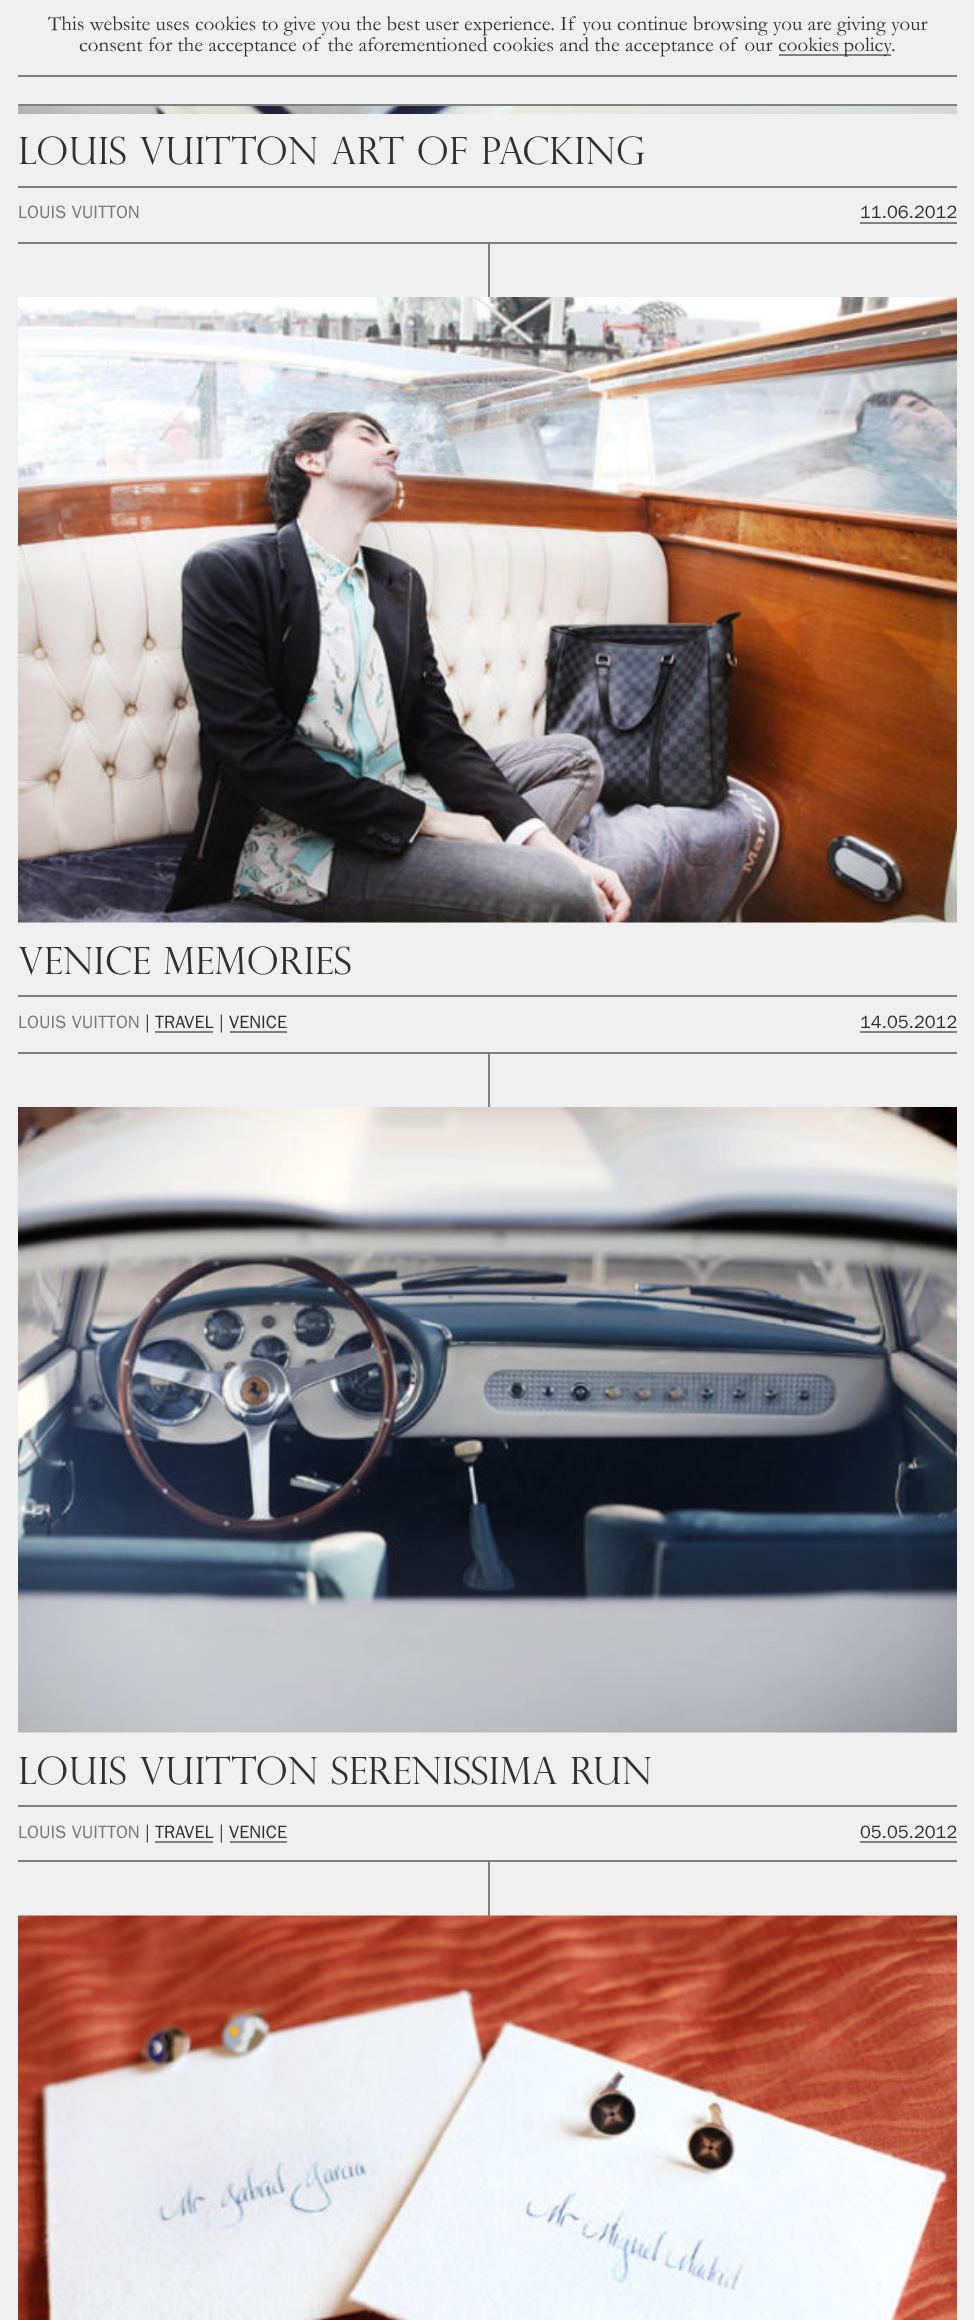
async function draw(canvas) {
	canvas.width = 974;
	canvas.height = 2320;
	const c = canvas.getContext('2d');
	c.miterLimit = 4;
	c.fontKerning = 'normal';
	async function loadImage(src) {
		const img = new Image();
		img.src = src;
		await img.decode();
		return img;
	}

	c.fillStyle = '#f0f0f0';
	c.fillRect(0, 0, 974, 2320);
	c.fillStyle = '#808080';
	c.fillRect(18, 75, 939, 2);
	c.font = '21px Garamond';
	c.fillStyle = '#303030';
	c.fillText('This website uses cookies to give you the best user experience. If you continue browsing you are giving your', 48, 30);
	c.fillText('consent for the acceptance of the aforementioned cookies and the acceptance of our', 79, 51);
	c.fillStyle = '#808080';
	c.fillRect(779, 54, 112, 2);
	c.wordSpacing = '-1px';
	c.fillStyle = '#303030';
	c.fillText('cookies policy', 778, 51);
	c.wordSpacing = '0px';
	c.fillText('.', 891, 51);
	c.fillStyle = '#808080';
	c.fillRect(18, 104, 939, 2);
	c.drawImage(await loadImage('img1.png'), 18, 106, 939, 8);
	c.font = '300 37.5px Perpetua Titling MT';
	c.fillStyle = '#303030';
	c.fillText('LOUIS VUITTON ART OF PACKING', 18, 164);
	c.fillStyle = '#808080';
	c.fillRect(18, 186, 939, 2);
	c.fillRect(18, 242, 939, 2);
	c.font = '18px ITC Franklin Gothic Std';
	c.fillStyle = '#787878';
	c.fillText('LOUIS VUITTON', 18, 218);
	c.fillStyle = '#303030';
	c.fillText('11.06.2012', 860, 218);
	for (const [x, y, w, h, color] of [
		[860, 222, 97, 2, '#808080'],
		[488, 244, 2, 1672, '#808080'],
		[488, 922, 2, 130, '#f0f0f0'],
	]) {
		c.fillStyle = color;
		c.fillRect(x, y, w, h);
	}
	c.drawImage(await loadImage('img2.png'), 18, 297, 939, 626);
	c.font = '300 37.5px Perpetua Titling MT';
	c.fillStyle = '#303030';
	c.fillText('Venice Memories', 18, 974);
	c.fillStyle = '#808080';
	c.fillRect(18, 995, 939, 2);
	c.fillRect(18, 1052, 939, 2);
	c.font = '18px ITC Franklin Gothic Std';
	c.fillStyle = '#787878';
	c.fillText('LOUIS VUITTON', 18, 1028);
	c.fillStyle = '#303030';
	c.fillText('| TRAVEL', 145, 1028);
	c.fillStyle = '#808080';
	c.fillRect(155, 1031, 58, 2);
	c.fillStyle = '#303030';
	c.fillText('| VENICE', 219, 1028);
	c.fillStyle = '#808080';
	c.fillRect(230, 1031, 57, 2);
	c.fillStyle = '#303030';
	c.fillText('14.05.2012', 860, 1028);
	c.fillStyle = '#808080';
	c.fillRect(860, 1031, 97, 2);
	c.fillStyle = '#f0f0f0';
	c.fillRect(488, 1732, 2, 128);
	c.drawImage(await loadImage('img3.png'), 18, 1107, 939, 626);
	c.font = '300 37.5px Perpetua Titling MT';
	c.fillStyle = '#303030';
	c.fillText('Louis Vuitton Serenissima Run', 18, 1784);
	c.fillStyle = '#808080';
	c.fillRect(18, 1805, 939, 2);
	c.fillRect(18, 1860, 939, 2);
	c.font = '18px ITC Franklin Gothic Std';
	c.fillStyle = '#787878';
	c.fillText('LOUIS VUITTON', 18, 1838);
	c.fillStyle = '#303030';
	c.fillText('| TRAVEL', 145, 1838);
	c.fillStyle = '#808080';
	c.fillRect(155, 1841, 58, 2);
	c.fillStyle = '#303030';
	c.fillText('| VENICE', 219, 1838);
	c.fillStyle = '#808080';
	c.fillRect(230, 1841, 57, 2);
	c.fillStyle = '#303030';
	c.fillText('05.05.2012', 860, 1838);
	c.fillStyle = '#808080';
	c.fillRect(860, 1841, 97, 2);
	c.drawImage(await loadImage('img4.png'), 18, 1915, 939, 405);
}

draw(document.querySelector('canvas'));
